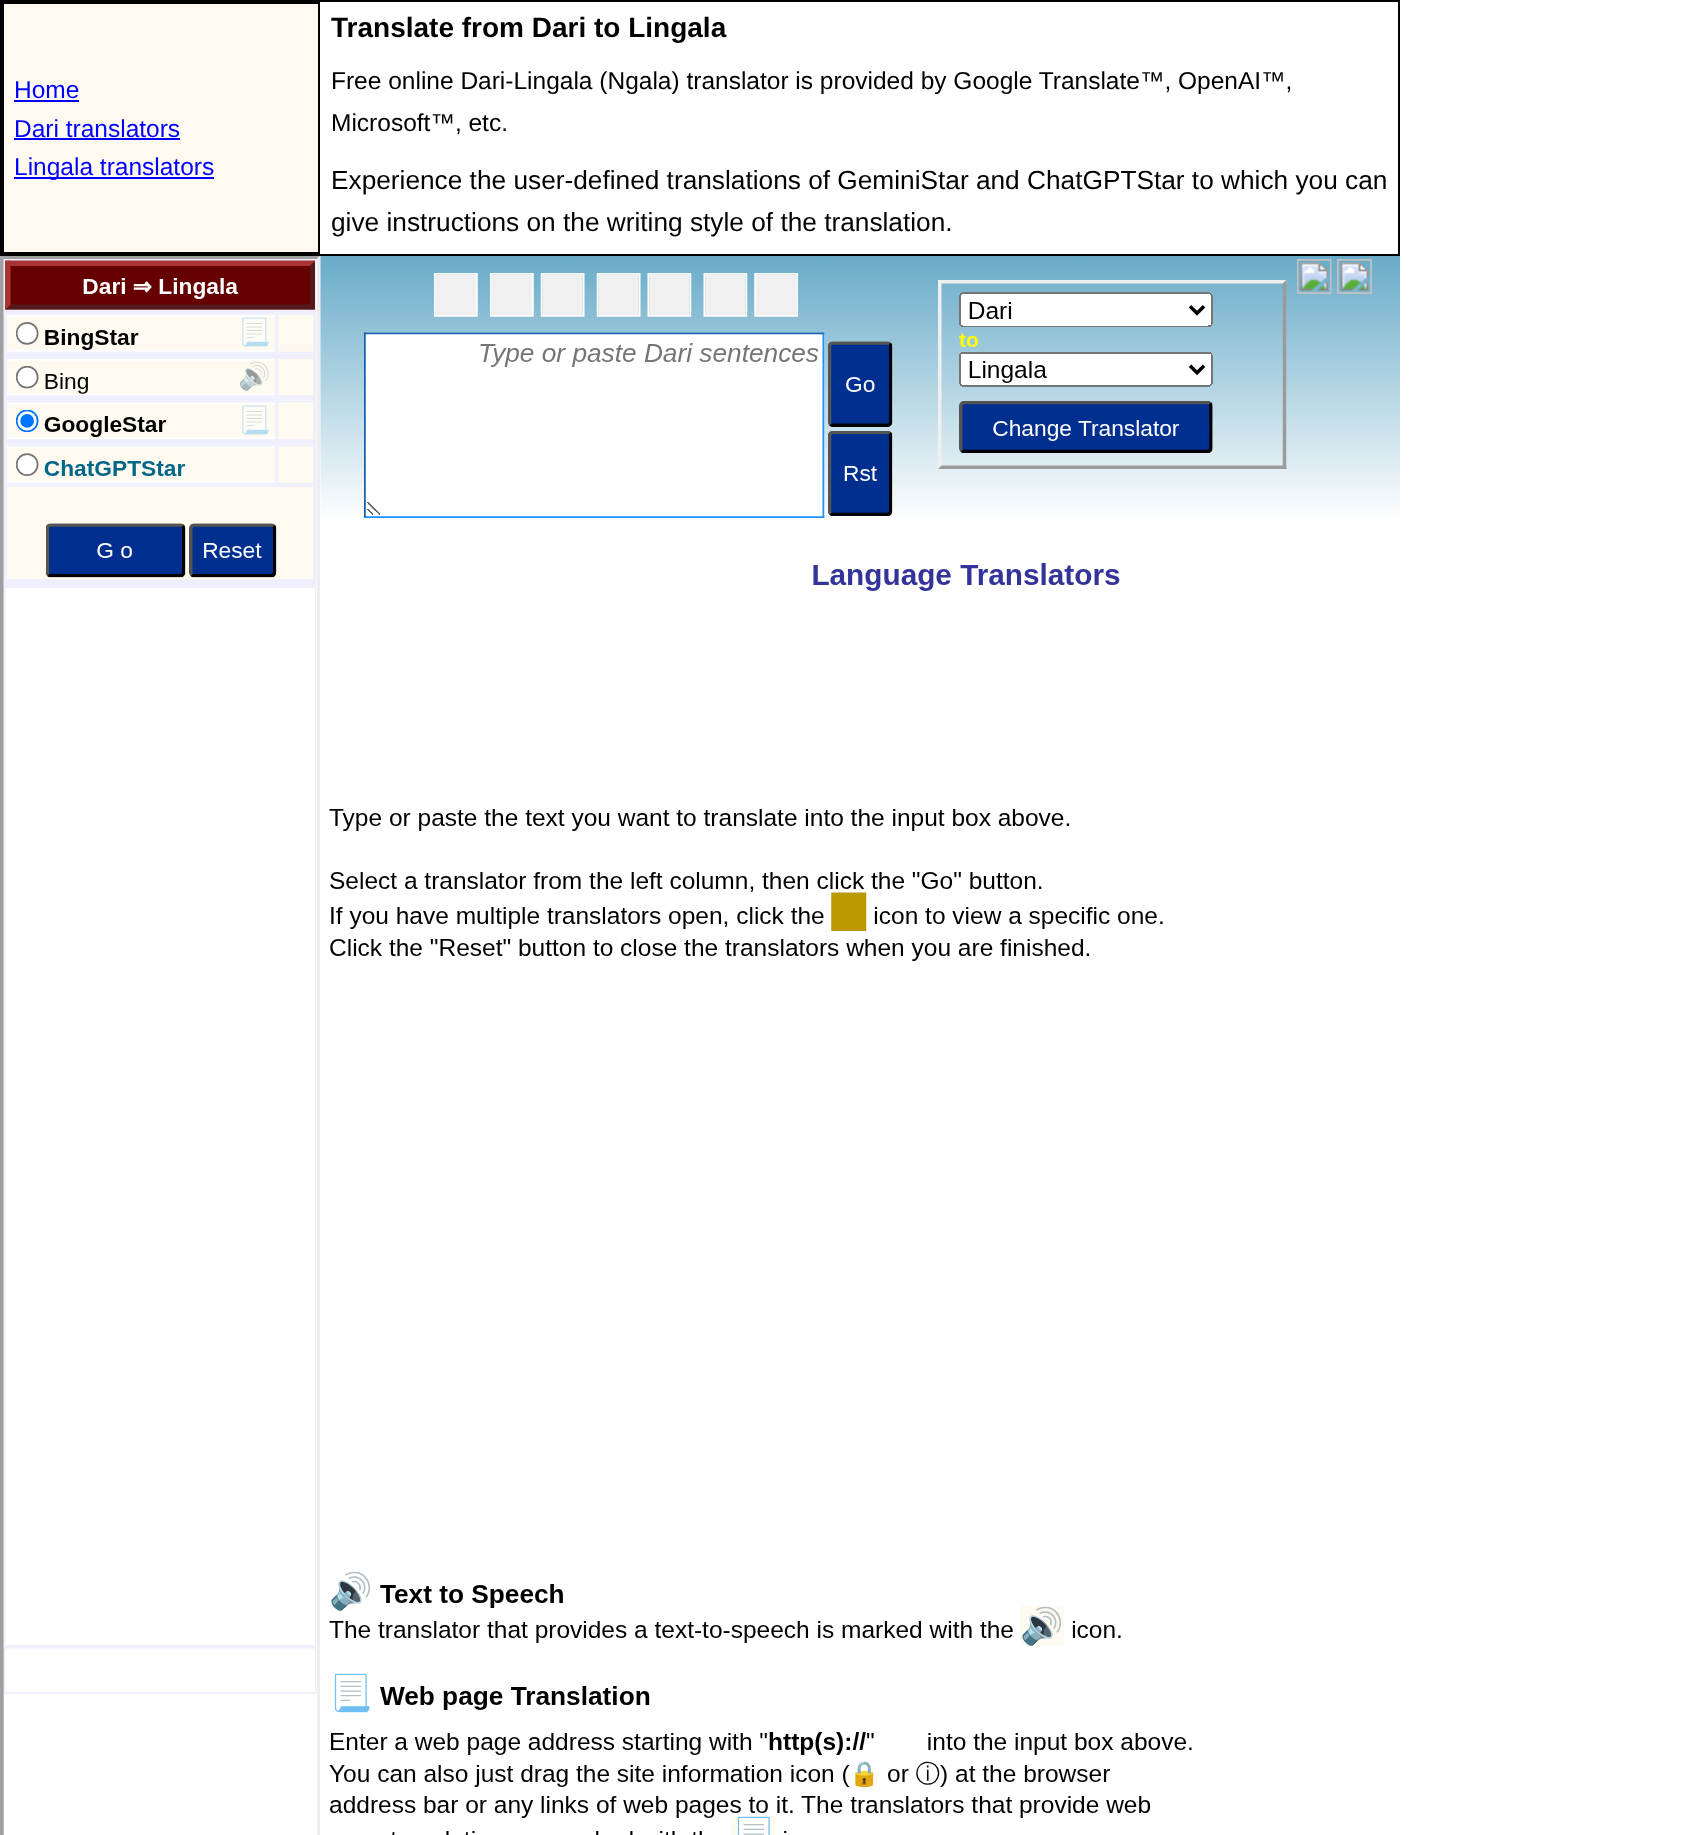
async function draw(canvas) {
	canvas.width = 1688;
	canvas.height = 1835;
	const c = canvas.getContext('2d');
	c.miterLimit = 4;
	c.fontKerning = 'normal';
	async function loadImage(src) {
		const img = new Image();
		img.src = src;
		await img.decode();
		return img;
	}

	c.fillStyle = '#fff';
	c.fillRect(0, 0, 1688, 1835);
	c.strokeStyle = '#000';
	c.lineWidth = 2;
	c.strokeRect(1, 1, 1398, 254);
	c.fillStyle = '#fefaef';
	c.beginPath();
	c.rect(3, 3, 316, 250);
	c.fill();
	c.stroke();
	c.font = '24.5px Liberation Sans';
	c.fillStyle = '#00f';
	c.fillText('Home', 14, 98);
	c.fillRect(14, 100, 65, 2);
	c.fillText('Dari translators', 14, 137);
	c.fillRect(14, 138, 166, 2);
	c.fillRect(14, 177, 200, 2);
	c.fillText('Lingala translators', 14, 175);
	c.font = 'bold 28px Liberation Sans';
	c.fillStyle = '#000';
	c.fillText('Translate from Dari to Lingala', 331, 37);
	c.font = '24.5px Liberation Sans';
	c.fillText('Free online Dari-Lingala (Ngala) translator is provided by Google Translate™, OpenAI™,', 331, 89);
	c.fillText('Microsoft™, etc.', 331, 131);
	c.font = '26.25px Liberation Sans';
	c.fillText('Experience the user-defined translations of GeminiStar and ChatGPTStar to which you can', 331, 189);
	c.fillText('give instructions on the writing style of the translation.', 331, 231);
	c.fillStyle = '#9f9f9f';
	c.beginPath();
	c.moveTo(0, 256);
	c.lineTo(320, 256);
	c.lineTo(317, 259);
	c.lineTo(4, 259);
	c.closePath();
	c.fill();
	c.beginPath();
	c.moveTo(0, 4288);
	c.lineTo(0, 256);
	c.lineTo(4, 259);
	c.lineTo(4, 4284);
	c.closePath();
	c.fill();
	c.drawImage(await loadImage('img1.png'), 3, 259, 314, 1576);
	c.fillStyle = '#eee';
	c.beginPath();
	c.moveTo(320, 256);
	c.lineTo(320, 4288);
	c.lineTo(317, 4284);
	c.lineTo(317, 259);
	c.closePath();
	c.fill();
	c.drawImage(await loadImage('img2.png'), 320, 256, 1080, 262);
	c.drawImage(await loadImage('img3.png'), 329, 563, 863, 1272);
}

draw(document.querySelector('canvas'));
